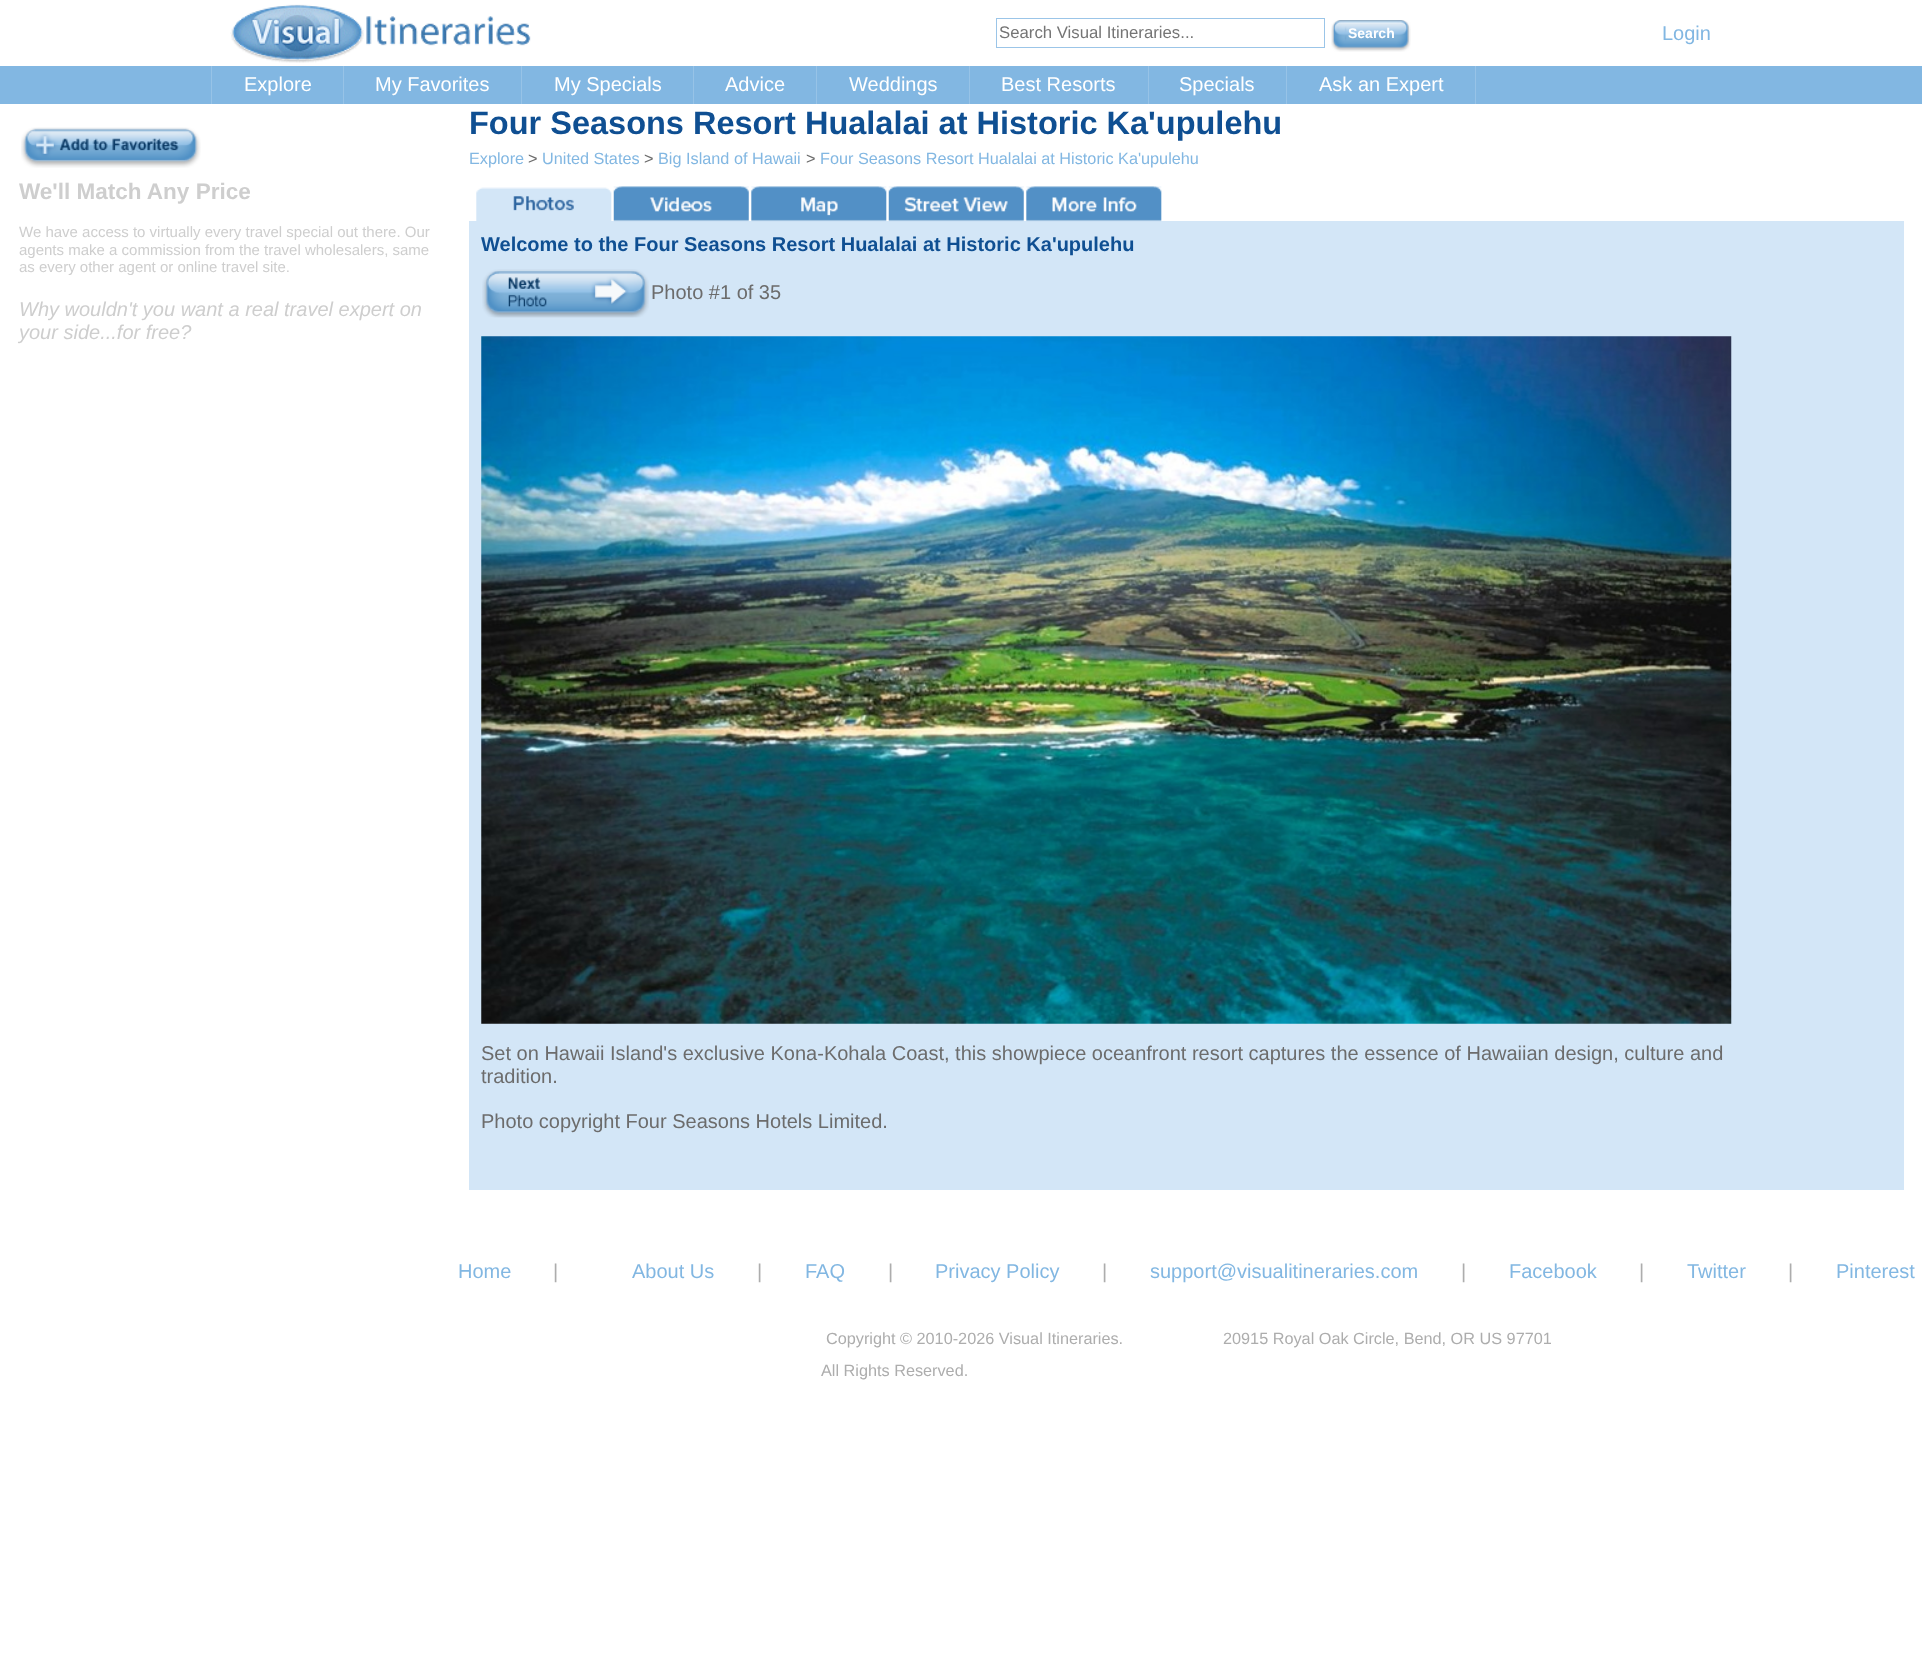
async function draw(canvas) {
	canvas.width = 1922;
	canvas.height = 1672;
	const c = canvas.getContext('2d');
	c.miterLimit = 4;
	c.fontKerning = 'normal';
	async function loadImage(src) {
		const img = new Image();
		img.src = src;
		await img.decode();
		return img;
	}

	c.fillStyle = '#fff';
	c.fillRect(0, 0, 1922, 1672);
	c.drawImage(await loadImage('img1.png'), 230, 4, 301, 59);
	c.strokeStyle = '#9bc5e8';
	c.strokeRect(996.5, 18.5, 328, 29);
	c.font = '16.75px Liberation Sans';
	c.fillStyle = '#757575';
	c.fillText('Search Visual Itineraries...', 999, 38);
	c.drawImage(await loadImage('img2.png'), 1331, 20, 80, 32);
	c.font = 'bold 14px Liberation Sans';
	c.fillStyle = '#fff';
	c.fillText('Search', 1348, 38);
	c.font = '20px Liberation Sans';
	c.fillStyle = '#82b7e2';
	c.fillText('Login', 1662, 40);
	c.fillRect(0, 66, 1922, 38);
	c.fillStyle = '#97c3e7';
	c.fillRect(211, 66, 1, 38);
	c.fillStyle = '#fff';
	c.fillText('Explore', 244, 91);
	c.fillStyle = '#97c3e7';
	c.fillRect(343, 66, 1, 38);
	c.fillStyle = '#fff';
	c.fillText('My Favorites', 375, 91);
	c.fillStyle = '#97c3e7';
	c.fillRect(521, 66, 1, 38);
	c.fillStyle = '#fff';
	c.fillText('My Specials', 554, 91);
	c.fillStyle = '#97c3e7';
	c.fillRect(693, 66, 1, 38);
	c.fillStyle = '#fff';
	c.fillText('Advice', 725, 91);
	c.fillStyle = '#97c3e7';
	c.fillRect(816, 66, 1, 38);
	c.fillStyle = '#fff';
	c.fillText('Weddings', 849, 91);
	c.fillStyle = '#97c3e7';
	c.fillRect(969, 66, 1, 38);
	c.fillStyle = '#fff';
	c.fillText('Best Resorts', 1001, 91);
	c.fillStyle = '#97c3e7';
	c.fillRect(1148, 66, 1, 38);
	c.fillStyle = '#fff';
	c.fillText('Specials', 1179, 91);
	c.fillStyle = '#97c3e7';
	c.fillRect(1475, 66, 1, 38);
	c.fillRect(1286, 66, 1, 38);
	c.fillStyle = '#fff';
	c.fillText('Ask an Expert', 1319, 91);
	c.drawImage(await loadImage('img3.png'), 21, 127, 180, 41);
	c.font = 'bold 22.5px Liberation Sans';
	c.fillStyle = '#cecece';
	c.fillText('We\'ll Match Any Price', 19, 199);
	c.font = '15px Liberation Sans';
	for (const [text, x, y] of [
		['We have access to virtually every travel special out there. Our', 19, 237],
		['agents make a commission from the travel wholesalers, same', 19, 255],
		['as every other agent or online travel site.', 19, 272],
	]) {
		c.fillText(text, x, y);
	}
	c.font = 'italic 20px Liberation Sans';
	c.fillText('Why wouldn\'t you want a real travel expert on', 19, 316);
	c.fillText('your side...for free?', 19, 339);
	c.font = 'bold 32.5px Liberation Sans';
	c.fillStyle = '#0f4f92';
	c.fillText('Four Seasons Resort Hualalai at Historic Ka\'upulehu', 469, 134);
	c.font = '16.25px Liberation Sans';
	c.fillStyle = '#82b7e2';
	c.fillText('Explore', 469, 164);
	c.fillStyle = '#6c6c6c';
	c.fillText('>', 528, 164);
	c.fillStyle = '#82b7e2';
	c.fillText('United States', 542, 164);
	c.fillStyle = '#6c6c6c';
	c.fillText('>', 644, 164);
	c.fillStyle = '#82b7e2';
	c.fillText('Big Island of Hawaii', 658, 164);
	c.fillStyle = '#6c6c6c';
	c.fillText('>', 806, 164);
	c.fillStyle = '#82b7e2';
	c.fillText('Four Seasons Resort Hualalai at Historic Ka\'upulehu', 820, 164);
	c.drawImage(await loadImage('img4.png'), 476, 187, 136, 34);
	c.fillStyle = '#d3e6f7';
	c.fillRect(469, 221, 1435, 969);
	c.drawImage(await loadImage('img5.png'), 613, 186, 136, 36);
	c.drawImage(await loadImage('img6.png'), 751, 186, 136, 36);
	c.drawImage(await loadImage('img7.png'), 888, 186, 136, 36);
	c.drawImage(await loadImage('img8.png'), 1026, 186, 136, 36);
	c.font = 'bold 20px Liberation Sans';
	c.fillStyle = '#0f4f92';
	c.fillText('Welcome to the Four Seasons Resort Hualalai at Historic Ka\'upulehu', 481, 251);
	c.drawImage(await loadImage('img9.png'), 482, 269, 167, 49);
	c.font = '20px Liberation Sans';
	c.fillStyle = '#6c6c6c';
	c.fillText('Photo #1 of 35', 651, 299);
	c.drawImage(await loadImage('img10.png'), 481, 336, 1251, 688);
	for (const [text, x, y] of [
		['Set on Hawaii Island\'s exclusive Kona-Kohala Coast, this showpiece oceanfront resort captures the essence of Hawaiian design, culture and', 481, 1060],
		['tradition.', 481, 1083],
		['Photo copyright Four Seasons Hotels Limited.', 481, 1128],
	]) {
		c.fillText(text, x, y);
	}
	c.fillStyle = '#82b7e2';
	c.fillText('Home', 458, 1278);
	c.fillStyle = '#adadad';
	c.fillText('|', 553, 1278);
	c.fillStyle = '#82b7e2';
	c.fillText('About Us', 632, 1278);
	c.fillStyle = '#adadad';
	c.fillText('|', 757, 1278);
	c.fillStyle = '#82b7e2';
	c.fillText('FAQ', 805, 1278);
	c.fillStyle = '#adadad';
	c.fillText('|', 888, 1278);
	c.fillStyle = '#82b7e2';
	c.fillText('Privacy Policy', 935, 1278);
	c.fillStyle = '#adadad';
	c.fillText('|', 1102, 1278);
	c.fillStyle = '#82b7e2';
	c.fillText('support@visualitineraries.com', 1150, 1278);
	c.fillStyle = '#adadad';
	c.fillText('|', 1461, 1278);
	c.fillStyle = '#82b7e2';
	c.fillText('Facebook', 1509, 1278);
	c.fillStyle = '#adadad';
	c.fillText('|', 1639, 1278);
	c.fillStyle = '#82b7e2';
	c.fillText('Twitter', 1687, 1278);
	c.fillStyle = '#adadad';
	c.fillText('|', 1788, 1278);
	c.fillStyle = '#82b7e2';
	c.fillText('Pinterest', 1836, 1278);
	c.font = '16.25px Liberation Sans';
	c.fillStyle = '#adadad';
	for (const [text, x, y] of [
		['Copyright © 2010-2026 Visual Itineraries.', 826, 1344],
		['All Rights Reserved.', 821, 1376],
		['20915 Royal Oak Circle, Bend, OR US 97701', 1223, 1344],
	]) {
		c.fillText(text, x, y);
	}
}

draw(document.querySelector('canvas'));
